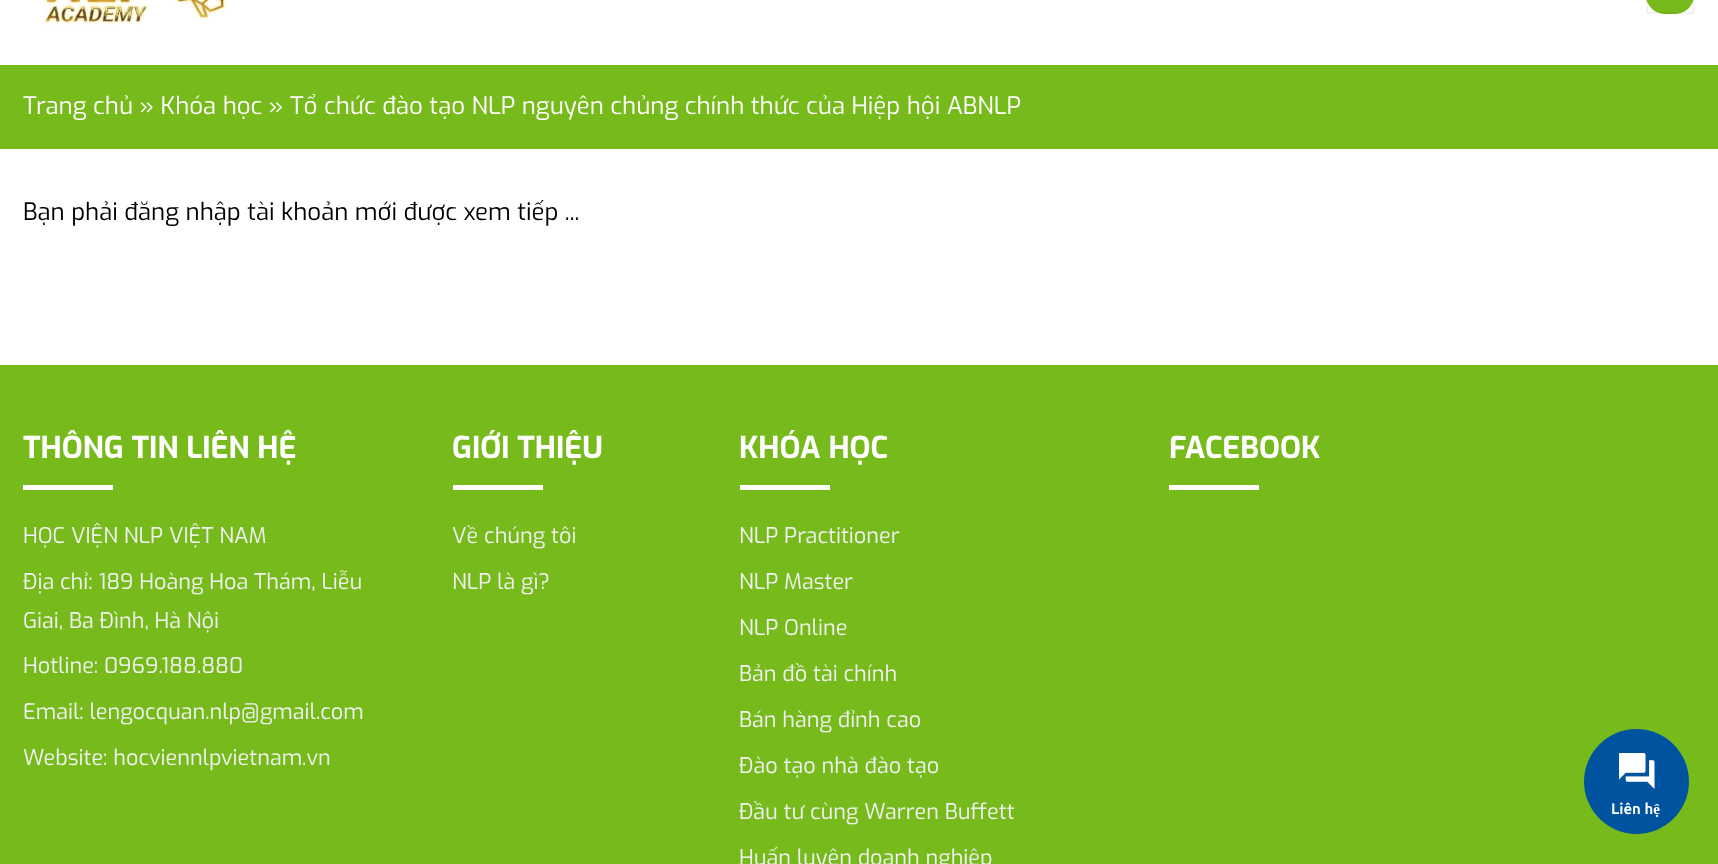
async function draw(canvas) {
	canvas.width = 1718;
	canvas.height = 864;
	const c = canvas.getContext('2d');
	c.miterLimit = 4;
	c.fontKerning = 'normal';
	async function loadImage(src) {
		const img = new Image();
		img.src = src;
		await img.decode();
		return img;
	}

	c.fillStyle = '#fff';
	c.fillRect(0, 0, 1718, 864);
	c.drawImage(await loadImage('img1.png'), 43, 0, 186, 25);
	c.fillStyle = '#76ba1b';
	c.beginPath();
	c.roundRect(1646, -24, 48, 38, 24);
	c.fill();
	c.strokeStyle = '#0000000d';
	c.lineWidth = 2;
	c.strokeRect(1647, -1, 46, 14);
	c.fillRect(0, 65, 1718, 84);
	c.font = '24px Exo';
	c.fillStyle = '#fff';
	c.fillText('Trang chủ » Khóa học » Tổ chức đào tạo NLP nguyên chủng chính thức của Hiệp hội ABNLP', 23, 114);
	c.fillStyle = '#000';
	c.fillText('Bạn phải đăng nhập tài khoản mới được xem tiếp ...', 23, 220);
	c.fillStyle = '#76ba1b';
	c.fillRect(0, 365, 1718, 499);
	c.font = 'bold 30px Exo';
	c.fillStyle = '#fff';
	c.fillText('THÔNG TIN LIÊN HỆ', 23, 458);
	c.fillRect(23, 485, 90, 5);
	c.font = '21.6px Exo';
	c.fillStyle = '#f1f1f1';
	for (const [text, x, y] of [
		['HỌC VIỆN NLP VIỆT NAM', 23, 543],
		['Địa chỉ: 189 Hoàng Hoa Thám, Liễu', 23, 589],
		['Giai, Ba Đình, Hà Nội', 23, 628],
		['Hotline: 0969.188.880', 23, 673],
		['Email: lengocquan.nlp@gmail.com', 23, 719],
		['Website: hocviennlpvietnam.vn', 23, 765],
	]) {
		c.fillText(text, x, y);
	}
	c.font = 'bold 30px Exo';
	c.fillStyle = '#fff';
	c.fillText('GIỚI THIỆU', 452, 458);
	c.fillRect(453, 485, 90, 5);
	c.font = '21.6px Exo';
	c.fillStyle = '#f1f1f1';
	c.fillText('Về chúng tôi', 452, 543);
	c.fillText('NLP là gì?', 452, 589);
	c.font = 'bold 30px Exo';
	c.fillStyle = '#fff';
	c.fillText('KHÓA HỌC', 739, 458);
	c.fillRect(740, 485, 90, 5);
	c.font = '21.6px Exo';
	c.fillStyle = '#f1f1f1';
	for (const [text, x, y] of [
		['NLP Practitioner', 739, 543],
		['NLP Master', 739, 589],
		['NLP Online', 739, 635],
		['Bản đồ tài chính', 739, 681],
		['Bán hàng đỉnh cao', 739, 727],
		['Đào tạo nhà đào tạo', 739, 773],
		['Đầu tư cùng Warren Buffett', 739, 819],
		['Huấn luyện doanh nghiệp', 739, 865],
	]) {
		c.fillText(text, x, y);
	}
	c.font = 'bold 30px Exo';
	c.fillStyle = '#fff';
	c.fillText('FACEBOOK', 1169, 458);
	c.fillRect(1169, 485, 90, 5);
	c.fillStyle = '#00549f';
	c.beginPath();
	c.arc(1636.5, 781.5, 52.5, 0, 2 * Math.PI);
	c.fill();
	c.drawImage(await loadImage('img2.png'), 1619, 753, 36, 36);
	c.font = 'bold 15px Ubuntu';
	c.fillStyle = '#fff';
	c.fillText('Liên hệ', 1611, 814);
}

draw(document.querySelector('canvas'));
